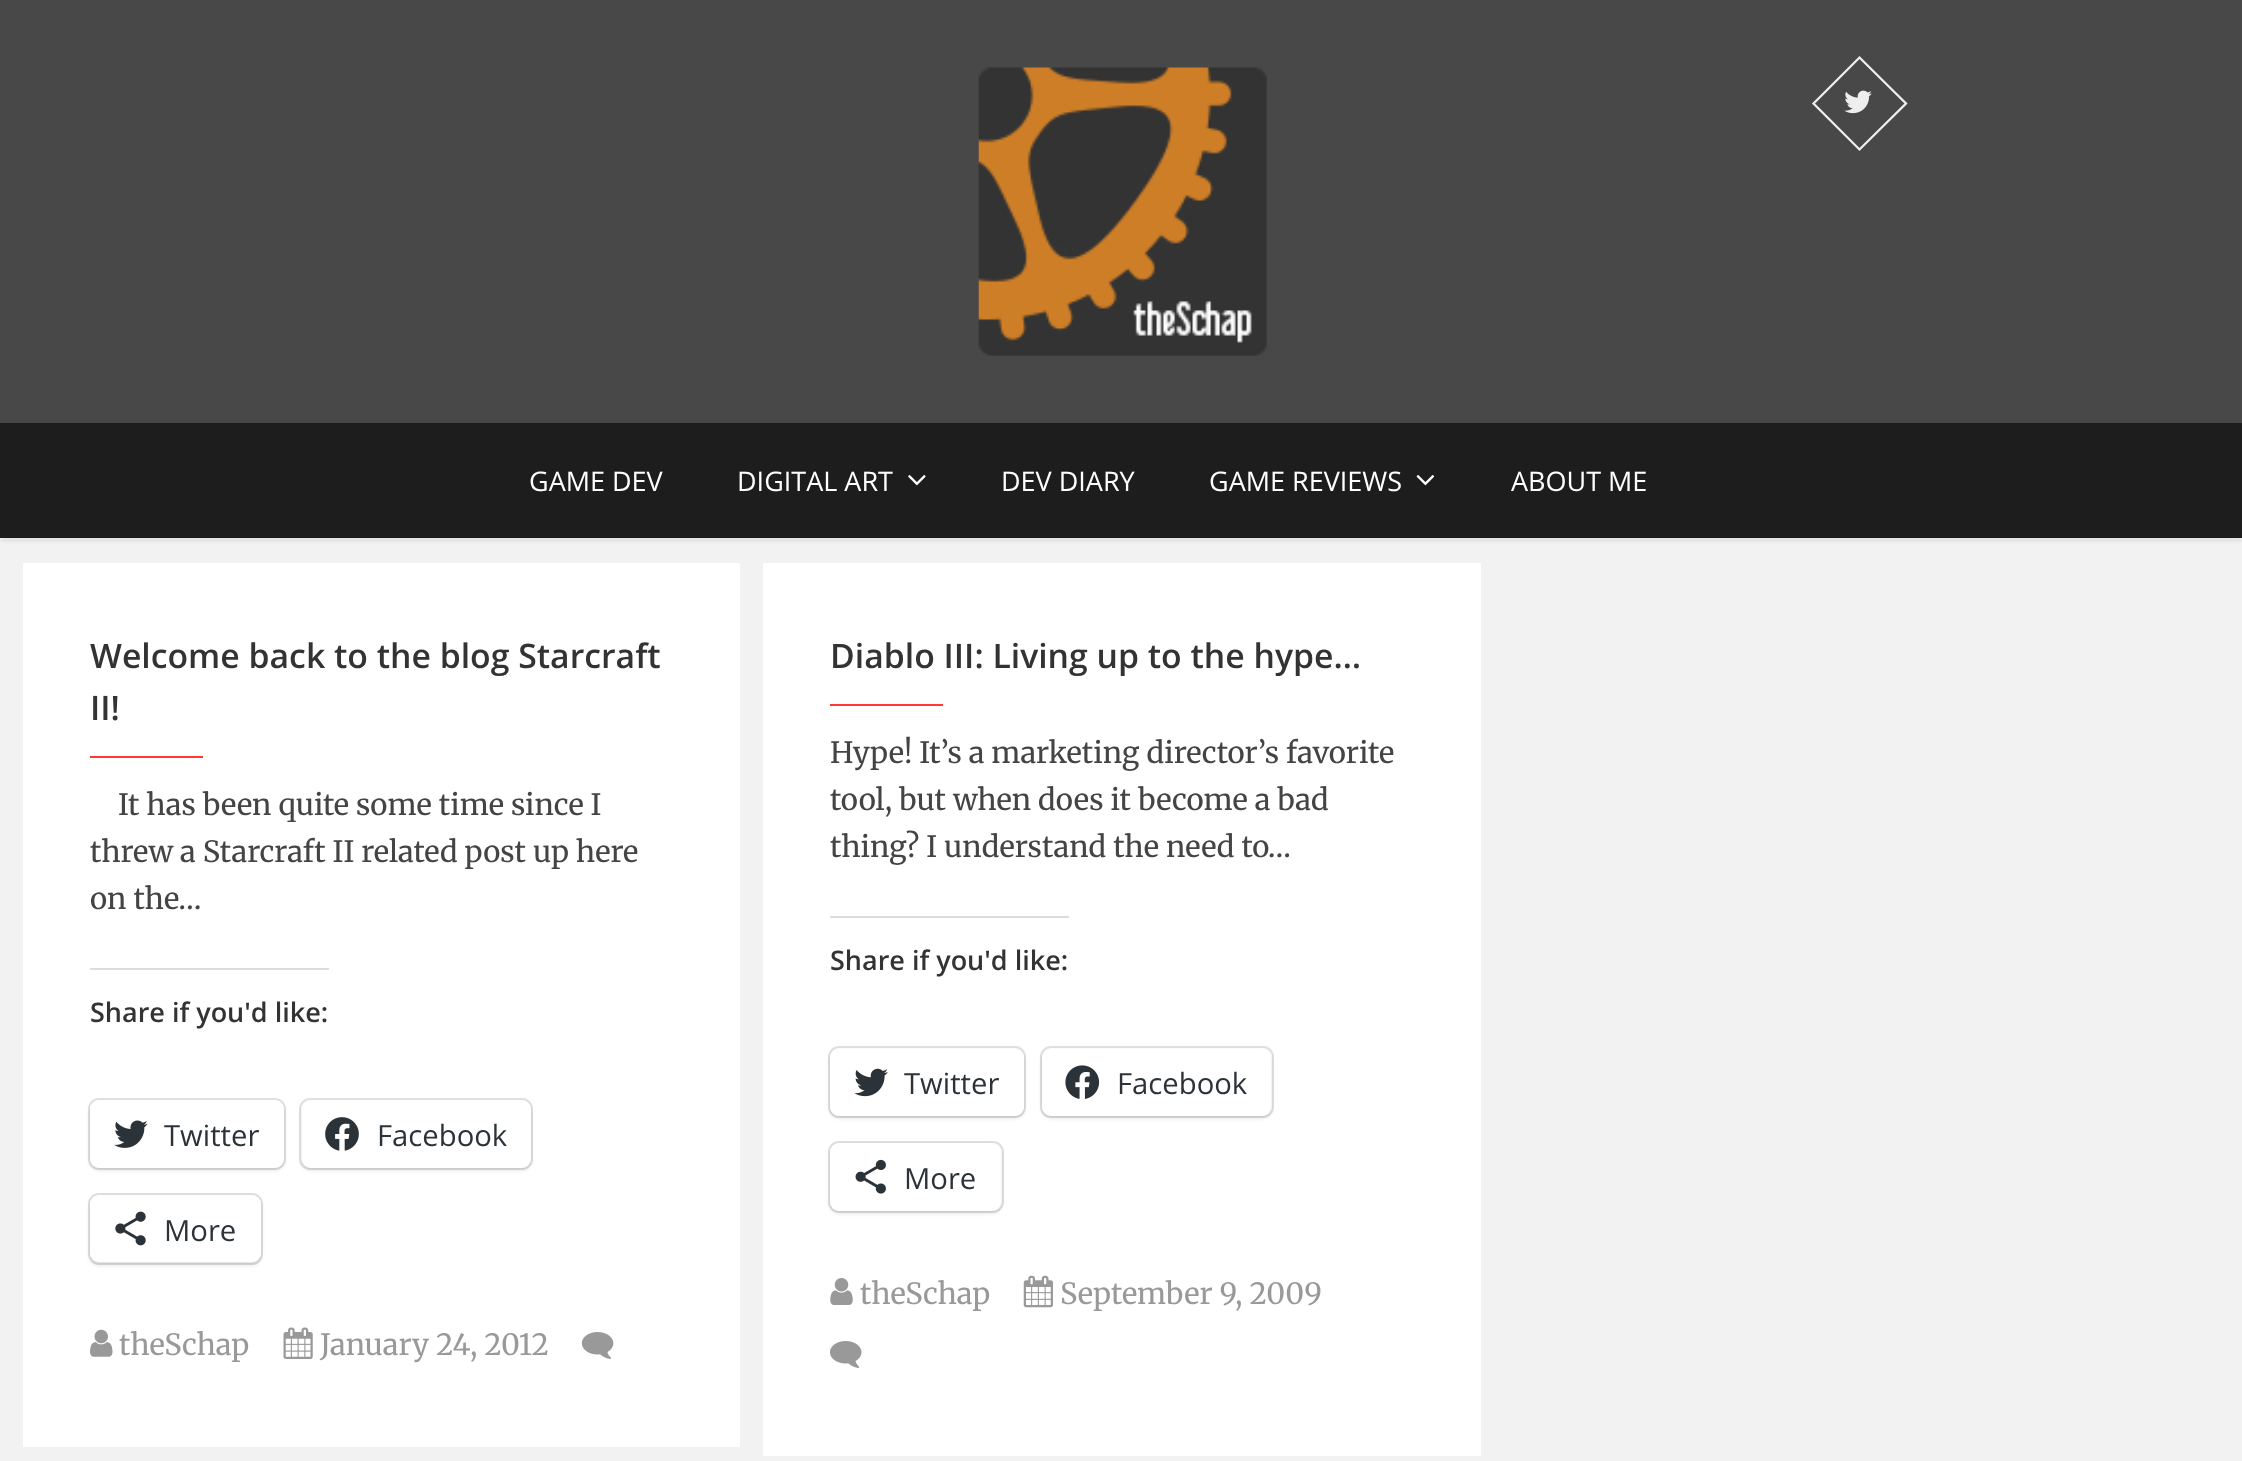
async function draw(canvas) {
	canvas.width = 2242;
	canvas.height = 1461;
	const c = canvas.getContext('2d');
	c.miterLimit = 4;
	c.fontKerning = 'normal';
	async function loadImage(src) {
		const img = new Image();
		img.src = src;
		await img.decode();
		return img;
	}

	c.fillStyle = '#fff';
	c.fillRect(0, 0, 2242, 1461);
	c.fillStyle = '#484848';
	c.fillRect(0, 0, 2242, 423);
	c.drawImage(await loadImage('img1.png'), 978, 67, 289, 289);
	c.beginPath();
	c.moveTo(1813.5, 103.5);
	c.lineTo(1859.5, 57.5);
	c.lineTo(1906, 103.5);
	c.lineTo(1859.5, 149.5);
	c.closePath();
	c.strokeStyle = '#eee';
	c.lineWidth = 2.3;
	c.stroke();
	c.drawImage(await loadImage('img2.png'), 1844, 90, 28, 24);
	c.fillStyle = '#f2f2f2';
	c.fillRect(0, 540, 2242, 921);
	c.fillStyle = '#00000026';
	c.filter = 'blur(2px)';
	c.beginPath();
	c.rect(0, 425, 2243, 115);
	c.fill();
	c.filter = 'none';
	c.fillStyle = '#1d1d1d';
	c.fillRect(0, 423, 2242, 115);
	c.font = '27px Open Sans';
	c.fillStyle = '#fff';
	c.fillText('GAME DEV', 529, 491);
	c.fillText('DIGITAL ART', 737, 491);
	c.drawImage(await loadImage('img3.png'), 908, 475, 18, 11);
	c.fillText('DEV DIARY', 1001, 491);
	c.fillText('GAME REVIEWS', 1209, 491);
	c.drawImage(await loadImage('img4.png'), 1416, 475, 19, 11);
	c.fillText('ABOUT ME', 1511, 491);
	c.fillRect(23, 563, 717, 884);
	c.font = '600 33.75px Open Sans';
	c.fillStyle = '#333';
	c.fillText('Welcome back to the blog Starcraft', 90, 668);
	c.fillText('II!', 90, 720);
	c.fillStyle = '#ff3838';
	c.fillRect(90, 756, 113, 2);
	c.font = '300 29.25px Merriweather';
	c.fillStyle = '#444';
	for (const [text, x, y] of [
		['It has been quite some time since I', 118, 815],
		['threw a Starcraft II related post up here', 90, 862],
		['on the…', 90, 909],
	]) {
		c.fillText(text, x, y);
	}
	c.fillStyle = '#dcdcde';
	c.fillRect(90, 968, 239, 2);
	c.font = '600 27px Open Sans';
	c.fillStyle = '#333';
	c.fillText('Share if you\'d like:', 90, 1022);
	c.beginPath();
	c.roundRect(89, 1099, 196, 70, 10);
	c.strokeStyle = '#e0e0e0';
	c.lineWidth = 2;
	c.stroke();
	c.fillStyle = '#0000001f';
	c.filter = 'blur(2px)';
	c.beginPath();
	c.roundRect(90, 1103, 194, 67, 9);
	c.fill();
	c.filter = 'none';
	c.fillStyle = '#fff';
	c.beginPath();
	c.roundRect(90, 1100, 194, 68, 9);
	c.fill();
	c.drawImage(await loadImage('img5.png'), 114, 1120, 34, 28);
	c.font = '29.25px Open Sans';
	c.fillStyle = '#2c3338';
	c.fillText('Twitter', 164, 1146);
	c.beginPath();
	c.roundRect(300, 1099, 232, 70, 10);
	c.stroke();
	c.fillStyle = '#0000001f';
	c.filter = 'blur(2px)';
	c.beginPath();
	c.roundRect(302, 1103, 229, 67, 9);
	c.fill();
	c.filter = 'none';
	c.fillStyle = '#fff';
	c.beginPath();
	c.roundRect(302, 1100, 229, 68, 9);
	c.fill();
	c.drawImage(await loadImage('img6.png'), 325, 1117, 34, 34);
	c.fillStyle = '#2c3338';
	c.fillText('Facebook', 377, 1146);
	c.beginPath();
	c.roundRect(89, 1194, 173, 70, 10);
	c.stroke();
	c.fillStyle = '#0000001f';
	c.filter = 'blur(2px)';
	c.beginPath();
	c.roundRect(90, 1197, 171, 68, 9);
	c.fill();
	c.filter = 'none';
	c.fillStyle = '#fff';
	c.beginPath();
	c.roundRect(90, 1195, 171, 67, 9);
	c.fill();
	c.drawImage(await loadImage('img7.png'), 115, 1211, 31, 35);
	c.fillStyle = '#2c3338';
	c.fillText('More', 164, 1241);
	c.drawImage(await loadImage('img8.png'), 90, 1329, 23, 28);
	c.font = '300 29.25px Merriweather';
	c.fillStyle = '#999';
	c.fillText('theSchap', 119, 1355);
	c.drawImage(await loadImage('img9.png'), 283, 1327, 30, 32);
	c.fillText('January 24, 2012', 320, 1355);
	c.drawImage(await loadImage('img10.png'), 581, 1332, 33, 27);
	c.fillStyle = '#fff';
	c.fillRect(763, 563, 718, 893);
	c.font = '600 33.75px Open Sans';
	c.fillStyle = '#333';
	c.fillText('Diablo III: Living up to the hype…', 830, 668);
	c.fillStyle = '#ff3838';
	c.fillRect(830, 704, 113, 2);
	c.font = '300 29.25px Merriweather';
	c.fillStyle = '#444';
	for (const [text, x, y] of [
		['Hype! It’s a marketing director’s favorite', 830, 763],
		['tool, but when does it become a bad', 830, 810],
		['thing? I understand the need to…', 830, 857],
	]) {
		c.fillText(text, x, y);
	}
	c.fillStyle = '#dcdcde';
	c.fillRect(830, 916, 239, 2);
	c.font = '600 27px Open Sans';
	c.fillStyle = '#333';
	c.fillText('Share if you\'d like:', 830, 970);
	c.beginPath();
	c.roundRect(829, 1047, 196, 70, 10);
	c.stroke();
	c.fillStyle = '#0000001f';
	c.filter = 'blur(2px)';
	c.beginPath();
	c.roundRect(830, 1051, 194, 67, 9);
	c.fill();
	c.filter = 'none';
	c.fillStyle = '#fff';
	c.beginPath();
	c.roundRect(830, 1049, 194, 67, 9);
	c.fill();
	c.drawImage(await loadImage('img11.png'), 854, 1068, 34, 29);
	c.font = '29.25px Open Sans';
	c.fillStyle = '#2c3338';
	c.fillText('Twitter', 904, 1094);
	c.beginPath();
	c.roundRect(1041, 1047, 232, 70, 10);
	c.stroke();
	c.fillStyle = '#0000001f';
	c.filter = 'blur(2px)';
	c.beginPath();
	c.roundRect(1042, 1051, 229, 67, 9);
	c.fill();
	c.filter = 'none';
	c.fillStyle = '#fff';
	c.beginPath();
	c.roundRect(1042, 1049, 229, 67, 9);
	c.fill();
	c.drawImage(await loadImage('img12.png'), 1065, 1065, 35, 34);
	c.fillStyle = '#2c3338';
	c.fillText('Facebook', 1117, 1094);
	c.beginPath();
	c.roundRect(829, 1142, 174, 70, 10);
	c.stroke();
	c.fillStyle = '#0000001f';
	c.filter = 'blur(2px)';
	c.beginPath();
	c.roundRect(830, 1145, 171, 68, 9);
	c.fill();
	c.filter = 'none';
	c.fillStyle = '#fff';
	c.beginPath();
	c.roundRect(830, 1143, 171, 68, 9);
	c.fill();
	c.drawImage(await loadImage('img13.png'), 855, 1159, 31, 35);
	c.fillStyle = '#2c3338';
	c.fillText('More', 904, 1189);
	c.drawImage(await loadImage('img14.png'), 830, 1278, 23, 27);
	c.font = '300 29.25px Merriweather';
	c.fillStyle = '#999';
	c.fillText('theSchap', 860, 1304);
	c.drawImage(await loadImage('img15.png'), 1023, 1275, 30, 33);
	c.fillText('September 9, 2009', 1060, 1304);
	c.drawImage(await loadImage('img16.png'), 830, 1341, 32, 27);
}

draw(document.querySelector('canvas'));
